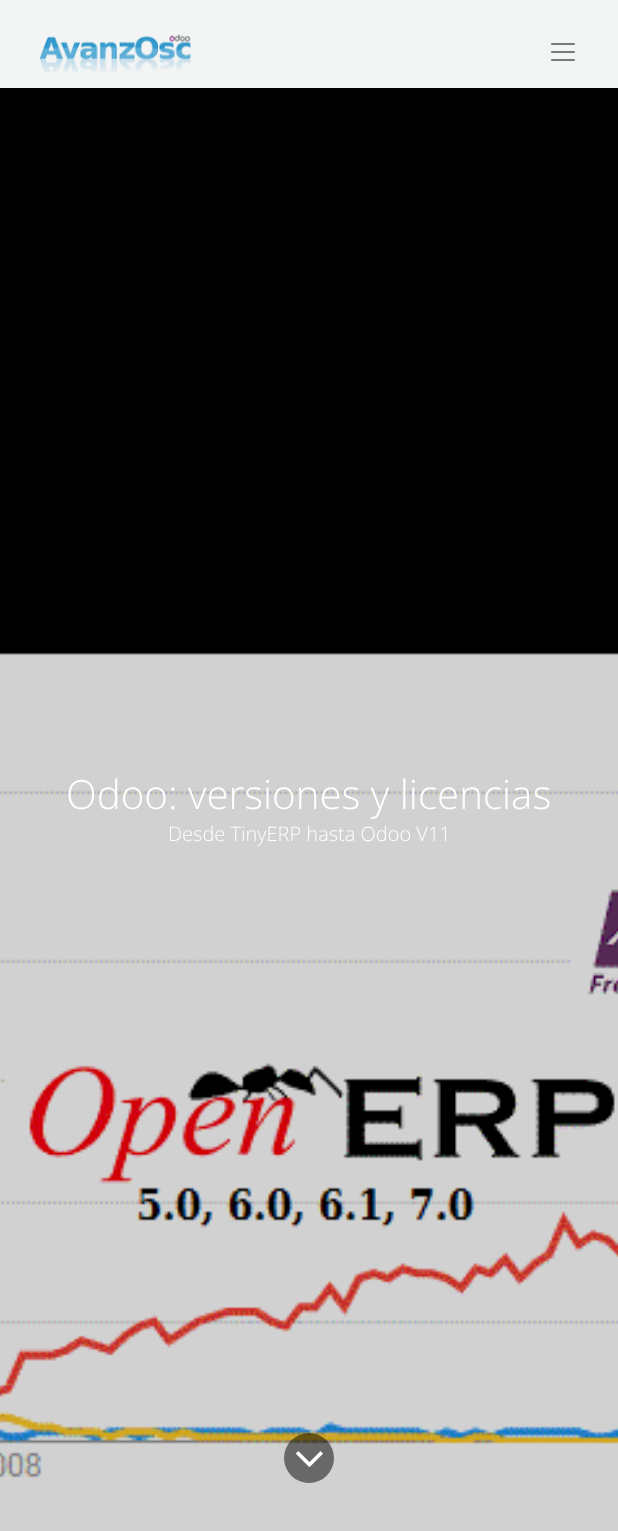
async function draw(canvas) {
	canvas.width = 618;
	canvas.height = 1531;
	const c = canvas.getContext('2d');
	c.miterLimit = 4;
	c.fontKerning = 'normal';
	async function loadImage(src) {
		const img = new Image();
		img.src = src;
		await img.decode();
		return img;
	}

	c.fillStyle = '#fff';
	c.fillRect(0, 0, 618, 1531);
	c.fillStyle = '#f3f4f4';
	c.fillRect(0, 0, 618, 88);
	c.drawImage(await loadImage('img1.png'), 39, 34, 153, 38);
	c.drawImage(await loadImage('img2.png'), 551, 43, 24, 18);
	c.drawImage(await loadImage('img3.png'), 0, 88, 618, 1443);
	c.font = '300 40.25px Open Sans';
	c.fillStyle = '#fff';
	c.fillText('Odoo: versiones y licencias', 66, 809);
	c.font = '300 20px Open Sans';
	c.fillText('Desde TinyERP hasta Odoo V11', 168, 841);
	c.fillStyle = '#00000080';
	c.beginPath();
	c.arc(309, 1458, 25, 0, 2 * Math.PI);
	c.fill();
	c.drawImage(await loadImage('img4.png'), 296, 1451, 27, 16);
}

draw(document.querySelector('canvas'));
